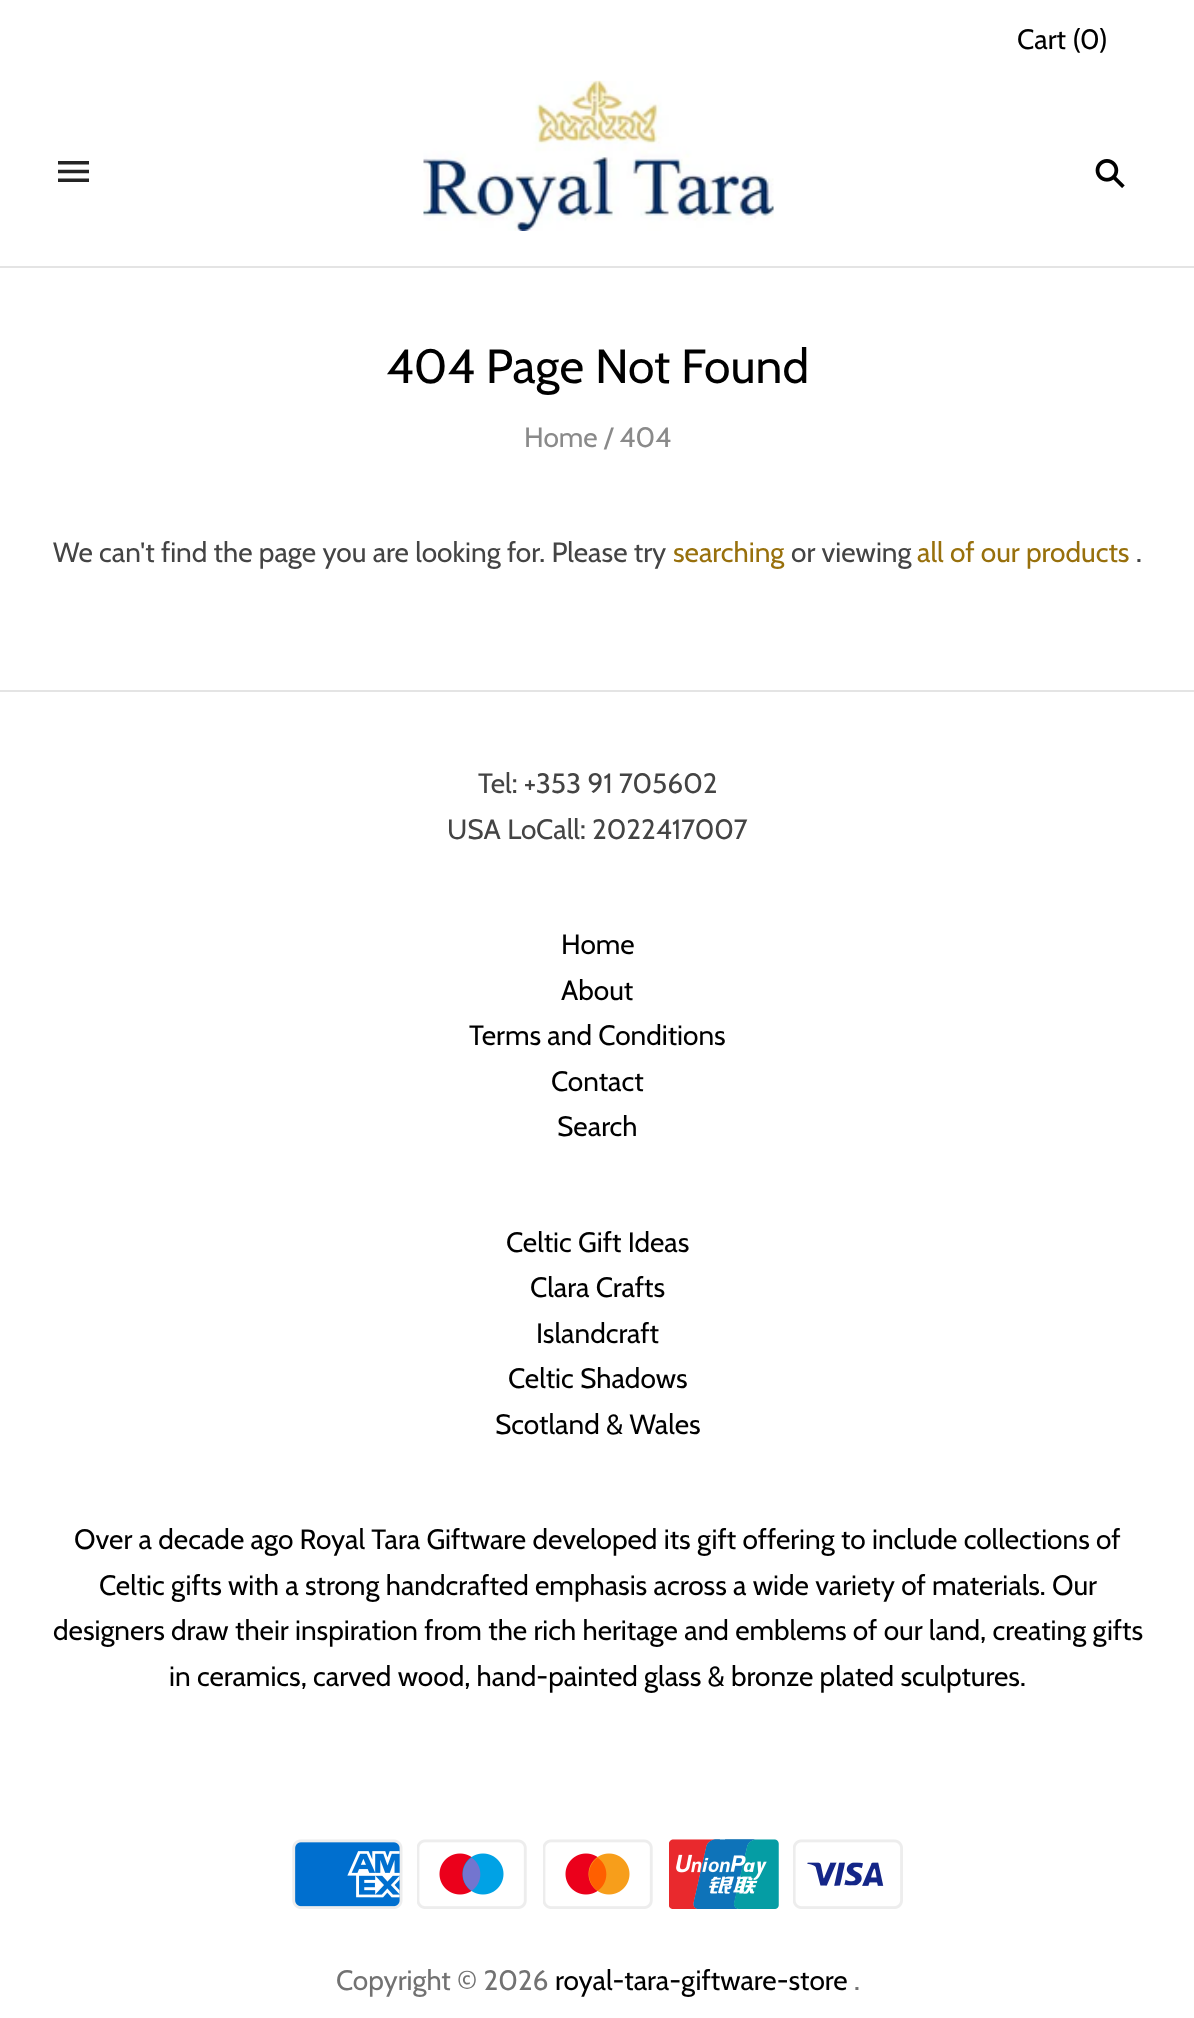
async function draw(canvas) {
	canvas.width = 1194;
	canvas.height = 2018;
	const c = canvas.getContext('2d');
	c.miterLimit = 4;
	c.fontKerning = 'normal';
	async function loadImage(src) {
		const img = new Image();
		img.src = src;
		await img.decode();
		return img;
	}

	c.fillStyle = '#fff';
	c.fillRect(0, 0, 1194, 2018);
	c.fillStyle = '#e4e4e4';
	c.fillRect(0, 266, 1194, 2);
	c.font = '28px Cabin';
	c.fillStyle = '#000';
	for (const [text, x, y] of [
		['Cart (', 1017, 49],
		['0', 1080, 49],
		[')', 1099, 49],
	]) {
		c.fillText(text, x, y);
	}
	c.drawImage(await loadImage('img1.png'), 58, 161, 31, 21);
	c.drawImage(await loadImage('img2.png'), 423, 80, 351, 151);
	c.drawImage(await loadImage('img3.png'), 1095, 159, 30, 29);
	c.font = '48px Cabin';
	c.fillText('404 Page Not Found', 386, 383);
	c.font = '28px Cabin';
	c.fillStyle = '#8a8a8a';
	c.fillText('Home / 404', 524, 447);
	c.fillStyle = '#444';
	c.fillText('We can\'t find the page you are looking for. Please try', 53, 562);
	c.fillStyle = '#98700c';
	c.fillText('searching', 673, 562);
	c.fillStyle = '#444';
	c.fillText('or viewing', 791, 562);
	c.fillStyle = '#98700c';
	c.fillText('all of our products', 917, 562);
	c.fillStyle = '#444';
	c.fillText('.', 1136, 562);
	c.fillStyle = '#e4e4e4';
	c.fillRect(0, 690, 1194, 2);
	c.fillStyle = '#444';
	c.fillText('Tel: +353 91 705602', 478, 793);
	c.fillText('USA LoCall: 2022417007', 447, 839);
	c.fillStyle = '#000';
	for (const [text, x, y] of [
		['Home', 561, 954],
		['About', 561, 1000],
		['Terms and Conditions', 469, 1045],
		['Contact', 551, 1091],
		['Search', 557, 1136],
		['Celtic Gift Ideas', 506, 1252],
		['Clara Crafts', 530, 1297],
		['Islandcraft', 536, 1343],
		['Celtic Shadows', 508, 1388],
		['Scotland & Wales', 495, 1434],
		['Over a decade ago Royal Tara Giftware developed its gift offering to include collections of', 74, 1549],
		['Celtic gifts with a strong handcrafted emphasis across a wide variety of materials. Our', 99, 1595],
		['designers draw their inspiration from the rich heritage and emblems of our land, creating gifts', 53, 1640],
		['in ceramics, carved wood, hand-painted glass & bronze plated sculptures.', 169, 1686],
	]) {
		c.fillText(text, x, y);
	}
	c.drawImage(await loadImage('img4.png'), 292, 1839, 111, 70);
	c.drawImage(await loadImage('img5.png'), 417, 1839, 110, 70);
	c.drawImage(await loadImage('img6.png'), 543, 1839, 110, 70);
	c.drawImage(await loadImage('img7.png'), 669, 1839, 110, 70);
	c.drawImage(await loadImage('img8.png'), 793, 1839, 110, 70);
	c.fillStyle = '#727272';
	c.fillText('Copyright © 2026', 336, 1990);
	c.fillStyle = '#000';
	c.fillText('royal-tara-giftware-store', 555, 1990);
	c.fillStyle = '#727272';
	c.fillText('.', 854, 1990);
}

draw(document.querySelector('canvas'));
